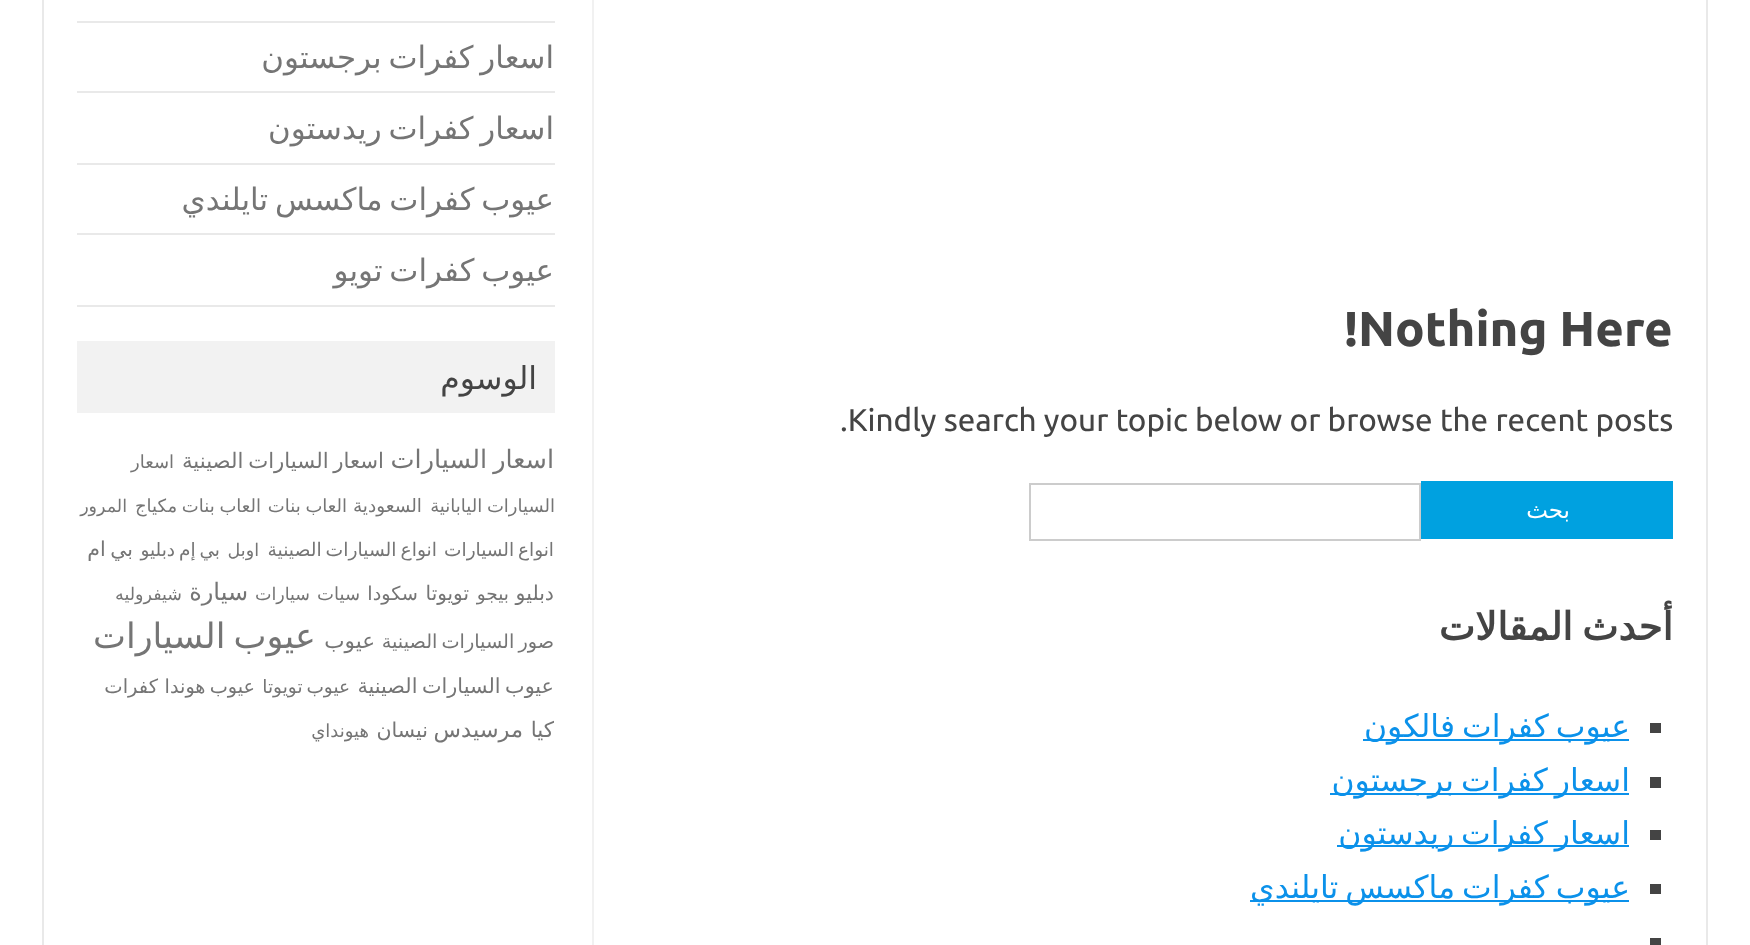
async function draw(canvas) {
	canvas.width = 1750;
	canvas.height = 945;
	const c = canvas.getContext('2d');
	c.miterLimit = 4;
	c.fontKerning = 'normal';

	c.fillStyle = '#fff';
	c.fillRect(0, 0, 1750, 945);
	c.strokeStyle = '#e9e9e9';
	c.lineWidth = 2;
	c.strokeRect(43, -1, 1664, 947);
	c.fillStyle = '#f1f1f1';
	c.fillRect(592, 0, 2, 945);
	c.font = 'bold 49px Ubuntu';
	c.fillStyle = '#444';
	c.fillText('!Nothing Here', 1344, 346);
	c.font = '31.5px Ubuntu';
	c.fillText('.Kindly search your topic below or browse the recent posts', 840, 431);
	c.fillStyle = '#00a1e0';
	c.fillRect(1421, 481, 252, 58);
	c.direction = 'rtl';
	c.font = '23px DejaVu Sans';
	c.fillStyle = '#fff';
	c.fillText('بحث', 1570, 518);
	c.strokeStyle = '#ccc';
	c.strokeRect(1030, 484, 390, 56);
	c.wordSpacing = '-3px';
	c.font = 'bold 38.5px DejaVu Sans';
	c.fillStyle = '#444';
	c.fillText('أحدث المقالات', 1673, 640);
	c.fillRect(1650, 723, 11, 10);
	c.fillStyle = '#0b91ea';
	c.fillRect(1363, 739, 266, 2);
	c.font = '31.5px DejaVu Sans';
	c.fillText('عيوب كفرات فالكون', 1630, 737);
	c.fillStyle = '#444';
	c.fillRect(1650, 777, 11, 11);
	c.fillStyle = '#0b91ea';
	c.fillRect(1330, 793, 299, 2);
	c.fillText('اسعار كفرات برجستون', 1630, 791);
	c.fillStyle = '#444';
	c.fillRect(1650, 830, 11, 10);
	c.fillStyle = '#0b91ea';
	c.fillRect(1337, 845, 292, 2);
	c.fillText('اسعار كفرات ريدستون', 1630, 844);
	c.fillStyle = '#444';
	c.fillRect(1650, 884, 11, 10);
	c.fillStyle = '#0b91ea';
	c.fillRect(1250, 900, 379, 2);
	c.fillText('عيوب كفرات ماكسس تايلندي', 1630, 898);
	for (const [x, y, w, h, color] of [
		[1650, 938, 11, 7, '#444'],
		[77, 21, 478, 2, '#e9e9e9'],
		[77, 91, 478, 2, '#e9e9e9'],
	]) {
		c.fillStyle = color;
		c.fillRect(x, y, w, h);
	}
	c.font = '30.9px DejaVu Sans';
	c.fillStyle = '#757575';
	c.fillText('اسعار كفرات برجستون', 554, 68);
	c.fillStyle = '#e9e9e9';
	c.fillRect(77, 163, 478, 2);
	c.fillStyle = '#757575';
	c.fillText('اسعار كفرات ريدستون', 554, 139);
	c.fillStyle = '#e9e9e9';
	c.fillRect(77, 233, 478, 2);
	c.fillStyle = '#757575';
	c.fillText('عيوب كفرات ماكسس تايلندي', 554, 210);
	c.fillStyle = '#e9e9e9';
	c.fillRect(77, 305, 478, 2);
	c.fillStyle = '#757575';
	c.fillText('عيوب كفرات تويو', 554, 281);
	c.fillStyle = '#f2f2f2';
	c.fillRect(77, 341, 478, 72);
	c.wordSpacing = '0px';
	c.font = '31.5px DejaVu Sans';
	c.fillStyle = '#444';
	c.fillText('الوسوم', 537, 389);
	c.wordSpacing = '-2px';
	c.font = '25.5px DejaVu Sans';
	c.fillStyle = '#757575';
	c.fillText('اسعار السيارات', 554, 468);
	c.font = '21.25px DejaVu Sans';
	c.fillText('اسعار السيارات الصينية', 384, 468);
	c.wordSpacing = '0px';
	c.font = '18px DejaVu Sans';
	c.fillText('اسعار', 174, 468);
	c.wordSpacing = '-1px';
	c.fillText('السيارات اليابانية', 555, 512);
	c.wordSpacing = '0px';
	c.font = '18.5px DejaVu Sans';
	c.fillText('السعودية', 422, 512);
	c.wordSpacing = '-1px';
	c.font = '18px DejaVu Sans';
	c.fillText('العاب بنات', 347, 512);
	c.fillText('العاب بنات مكياج', 261, 512);
	c.wordSpacing = '0px';
	c.font = '17.5px DejaVu Sans';
	c.fillText('المرور', 127, 512);
	c.wordSpacing = '-2px';
	c.font = '18.5px DejaVu Sans';
	c.fillText('انواع السيارات', 554, 556);
	c.font = '18.75px DejaVu Sans';
	c.fillText('انواع السيارات الصينية', 437, 556);
	c.wordSpacing = '0px';
	c.font = '17.5px DejaVu Sans';
	c.fillText('اوبل', 259, 556);
	c.wordSpacing = '-2px';
	c.font = '18.5px DejaVu Sans';
	c.fillText('بي إم دبليو', 220, 556);
	c.font = '20.5px DejaVu Sans';
	c.fillText('بي ام', 133, 556);
	c.wordSpacing = '0px';
	c.fillText('دبليو', 554, 600);
	c.font = '18.5px DejaVu Sans';
	c.fillText('بيجو', 509, 600);
	c.font = '20px DejaVu Sans';
	c.fillText('تويوتا', 469, 600);
	c.font = '19.25px DejaVu Sans';
	c.fillText('سكودا', 418, 600);
	c.font = '18px DejaVu Sans';
	c.fillText('سيات', 360, 600);
	c.font = '17.5px DejaVu Sans';
	c.fillText('سيارات', 310, 600);
	c.font = '24px DejaVu Sans';
	c.fillText('سيارة', 248, 600);
	c.font = '17.5px DejaVu Sans';
	c.fillText('شيفروليه', 182, 600);
	c.wordSpacing = '-2px';
	c.font = '19.25px DejaVu Sans';
	c.fillText('صور السيارات الصينية', 554, 648);
	c.wordSpacing = '0px';
	c.font = '21.5px DejaVu Sans';
	c.fillText('عيوب', 375, 648);
	c.wordSpacing = '-3px';
	c.font = '35px DejaVu Sans';
	c.fillText('عيوب السيارات', 316, 648);
	c.wordSpacing = '-2px';
	c.font = '20.75px DejaVu Sans';
	c.fillText('عيوب السيارات الصينية', 554, 693);
	c.font = '18.5px DejaVu Sans';
	c.fillText('عيوب تويوتا', 350, 693);
	c.font = '19.25px DejaVu Sans';
	c.fillText('عيوب هوندا', 255, 693);
	c.wordSpacing = '0px';
	c.font = '19.5px DejaVu Sans';
	c.fillText('كفرات', 158, 693);
	c.font = '21.5px DejaVu Sans';
	c.fillText('كيا', 554, 737);
	c.font = '22.5px DejaVu Sans';
	c.fillText('مرسيدس', 523, 737);
	c.font = '20.5px DejaVu Sans';
	c.fillText('نيسان', 428, 737);
	c.font = '18px DejaVu Sans';
	c.fillText('هيونداي', 369, 737);
}

draw(document.querySelector('canvas'));
